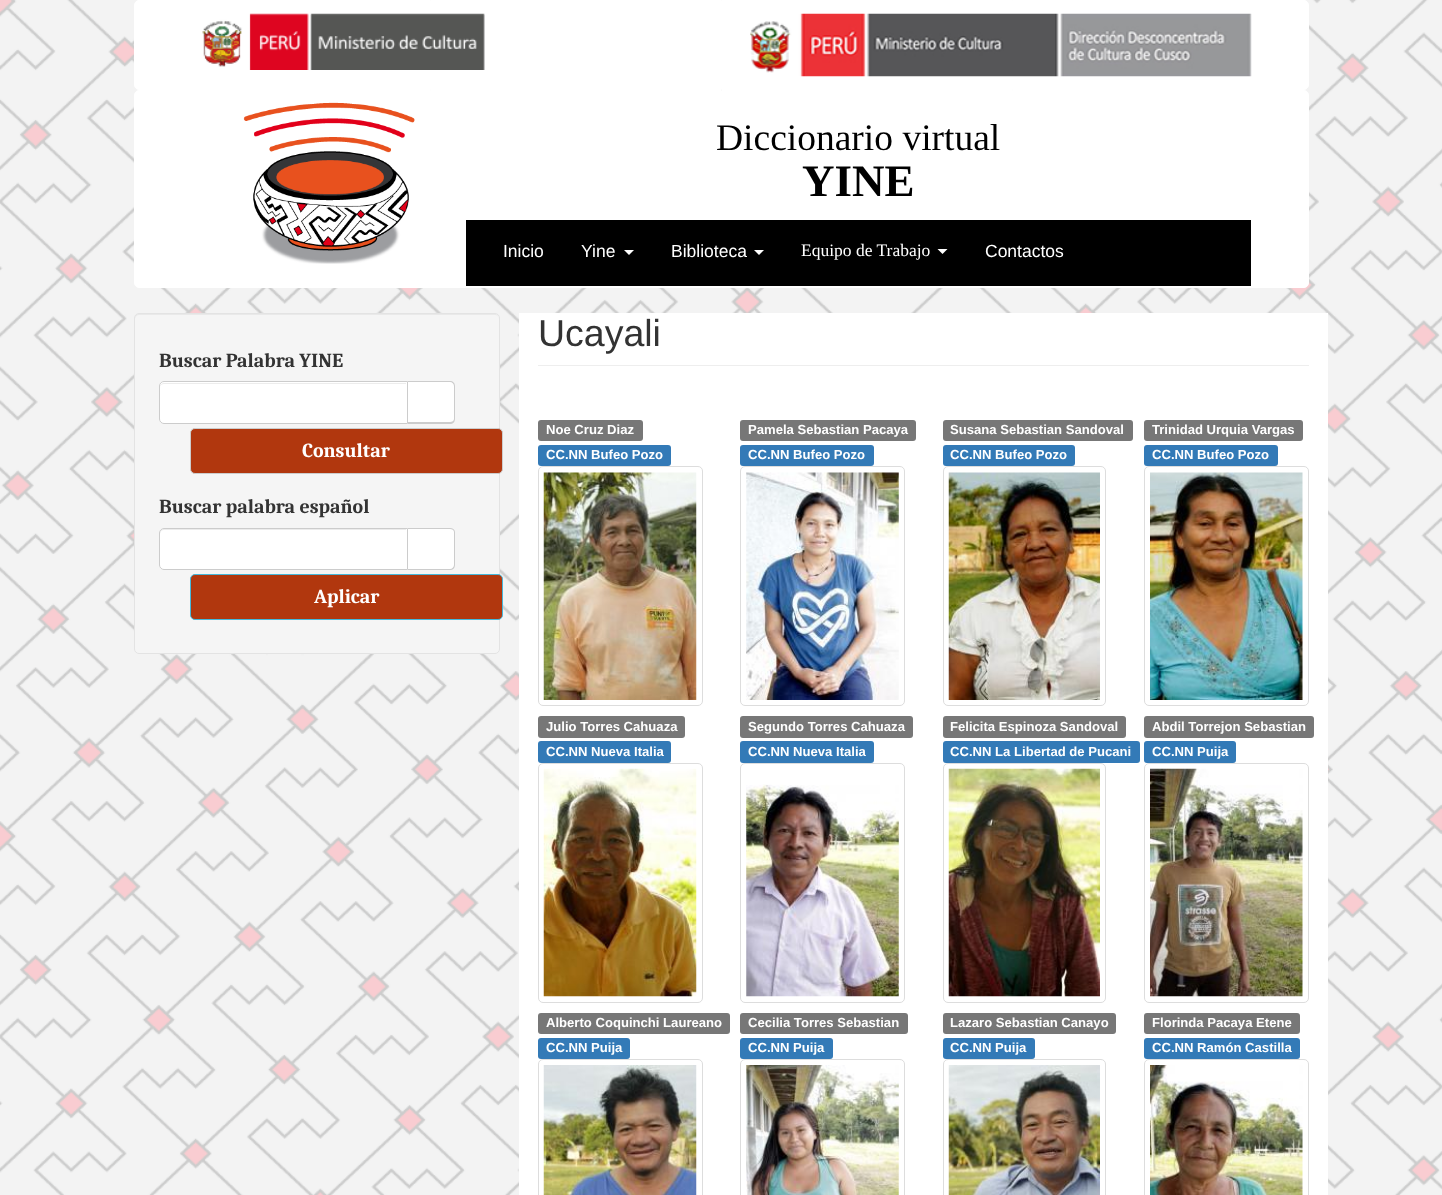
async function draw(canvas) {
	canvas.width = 1442;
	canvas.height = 1195;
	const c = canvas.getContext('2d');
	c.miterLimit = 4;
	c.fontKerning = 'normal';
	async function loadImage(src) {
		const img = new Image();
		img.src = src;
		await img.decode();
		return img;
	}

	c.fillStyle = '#fff';
	c.fillRect(0, 0, 1442, 1195);
	c.drawImage(await loadImage('img1.png'), 0, 0, 1442, 1195);
	c.beginPath();
	c.roundRect(134.5, 0.5, 1174, 89, 4.5);
	c.fill();
	c.strokeStyle = '#fff';
	c.stroke();
	c.drawImage(await loadImage('img2.png'), 202, 13, 283, 57);
	c.drawImage(await loadImage('img3.png'), 750, 13, 502, 64);
	c.beginPath();
	c.roundRect(134.5, 90.5, 1174, 197, 4.5);
	c.fill();
	c.stroke();
	c.drawImage(await loadImage('img4.png'), 243, 102, 172, 162);
	c.font = '37.5px Liberation Serif';
	c.fillStyle = '#000';
	c.fillText('Diccionario virtual', 716, 150);
	c.font = 'bold 45px Liberation Serif';
	c.fillText('YINE', 802, 196);
	c.fillRect(466, 220, 785, 66);
	c.font = '17.5px Liberation Sans';
	c.fillStyle = '#fff';
	c.fillText('Inicio', 503, 257);
	c.fillText('Yine', 581, 257);
	c.beginPath();
	c.moveTo(624, 250);
	c.lineTo(634, 250);
	c.lineTo(629, 255);
	c.closePath();
	c.fill();
	c.fillText('Biblioteca', 671, 257);
	c.beginPath();
	c.moveTo(754, 250);
	c.lineTo(764, 250);
	c.lineTo(759, 255);
	c.closePath();
	c.fill();
	c.font = '17.5px Liberation Serif';
	c.fillText('Equipo de Trabajo', 801, 256);
	c.beginPath();
	c.moveTo(937.5, 249);
	c.lineTo(947.5, 249);
	c.lineTo(942.5, 254);
	c.closePath();
	c.fill();
	c.font = '17.5px Liberation Sans';
	c.fillText('Contactos', 985, 257);
	c.fillStyle = '#f5f5f5';
	c.beginPath();
	c.roundRect(134, 313, 366, 341, 5);
	c.fill();
	c.fillStyle = '#e9e9e9';
	c.beginPath();
	c.moveTo(139, 315);
	c.lineTo(495, 315);
	c.bezierCurveTo(497, 315, 499, 317, 499, 319);
	c.lineTo(498, 316);
	c.lineTo(496, 314);
	c.lineTo(139, 314);
	c.bezierCurveTo(136, 314, 135, 316, 135, 319);
	c.bezierCurveTo(135, 317, 137, 315, 139, 315);
	c.closePath();
	c.fill();
	c.beginPath();
	c.roundRect(134.5, 313.5, 365, 340, 4.5);
	c.strokeStyle = '#e3e3e3';
	c.stroke();
	c.font = 'bold 20px Caladea';
	c.fillStyle = '#333';
	c.fillText('Buscar Palabra YINE', 159, 367);
	c.fillStyle = '#fff';
	c.beginPath();
	c.roundRect(159, 381, 249, 43, [5, 0, 0, 5]);
	c.fill();
	c.fillStyle = '#ececec';
	c.beginPath();
	c.moveTo(164, 384);
	c.lineTo(406, 384);
	c.lineTo(406, 383);
	c.lineTo(164, 383);
	c.bezierCurveTo(162, 383, 160, 385, 160, 387);
	c.lineTo(160, 388);
	c.bezierCurveTo(160, 385, 162, 384, 164, 384);
	c.closePath();
	c.fill();
	c.beginPath();
	c.roundRect(159.5, 381.5, 248, 42, [4.5, 0, 0, 4.5]);
	c.strokeStyle = '#ccc';
	c.stroke();
	c.fillStyle = '#fff';
	c.beginPath();
	c.roundRect(408, 381, 47, 43, [0, 5, 5, 0]);
	c.fill();
	c.fillStyle = '#ccc';
	c.beginPath();
	c.moveTo(408, 381);
	c.lineTo(450, 381);
	c.bezierCurveTo(453, 381, 455, 383, 455, 386);
	c.lineTo(455, 419);
	c.bezierCurveTo(455, 422, 453, 424, 450, 424);
	c.lineTo(408, 424);
	c.closePath();
	c.moveTo(408, 382);
	c.lineTo(450, 382);
	c.bezierCurveTo(452, 382, 454, 384, 454, 386);
	c.lineTo(454, 419);
	c.bezierCurveTo(454, 421, 452, 422, 450, 422);
	c.lineTo(408, 422);
	c.closePath();
	c.fill('evenodd');
	c.fillStyle = '#b1370e';
	c.beginPath();
	c.roundRect(190.5, 428.5, 312, 45, 4.5);
	c.fill();
	c.stroke();
	c.fillStyle = '#fff';
	c.fillText('Consultar', 302, 457);
	c.fillStyle = '#333';
	c.fillText('Buscar palabra español', 159, 513);
	c.fillStyle = '#fff';
	c.beginPath();
	c.roundRect(159, 528, 249, 42, [5, 0, 0, 5]);
	c.fill();
	c.fillStyle = '#ececec';
	c.beginPath();
	c.moveTo(164, 530);
	c.lineTo(406, 530);
	c.lineTo(406, 529);
	c.lineTo(164, 529);
	c.bezierCurveTo(162, 529, 160, 531, 160, 533);
	c.lineTo(160, 534);
	c.bezierCurveTo(160, 532, 162, 530, 164, 530);
	c.closePath();
	c.fill();
	c.beginPath();
	c.roundRect(159.5, 528.5, 248, 41, [4.5, 0, 0, 4.5]);
	c.stroke();
	c.fillStyle = '#fff';
	c.beginPath();
	c.roundRect(408, 528, 47, 42, [0, 5, 5, 0]);
	c.fill();
	c.fillStyle = '#ccc';
	c.beginPath();
	c.moveTo(408, 528);
	c.lineTo(450, 528);
	c.bezierCurveTo(453, 528, 455, 530, 455, 532);
	c.lineTo(455, 565);
	c.bezierCurveTo(455, 568, 453, 570, 450, 570);
	c.lineTo(408, 570);
	c.closePath();
	c.moveTo(408, 529);
	c.lineTo(450, 529);
	c.bezierCurveTo(452, 529, 454, 530, 454, 532);
	c.lineTo(454, 565);
	c.bezierCurveTo(454, 567, 452, 569, 450, 569);
	c.lineTo(408, 569);
	c.closePath();
	c.fill('evenodd');
	c.fillStyle = '#b1370e';
	c.beginPath();
	c.roundRect(190.5, 574.5, 312, 45, 4.5);
	c.fill();
	c.strokeStyle = '#46b8da';
	c.stroke();
	c.fillStyle = '#fff';
	c.fillText('Aplicar', 314, 603);
	c.fillRect(519, 313, 809, 882);
	c.fillStyle = '#eee';
	c.fillRect(538, 365, 771, 1);
	c.font = '37.5px Liberation Sans';
	c.fillStyle = '#333';
	c.fillText('Ucayali', 538, 346);
	c.fillStyle = '#777';
	c.beginPath();
	c.roundRect(538, 420, 105, 21, 3);
	c.fill();
	c.font = 'bold 13.1px Liberation Sans';
	c.fillStyle = '#fff';
	c.fillText('Noe Cruz Diaz', 546, 434);
	c.fillStyle = '#337ab7';
	c.beginPath();
	c.roundRect(538, 445, 133, 21, 3);
	c.fill();
	c.fillStyle = '#fff';
	c.fillText('CC.NN Bufeo Pozo', 546, 459);
	c.beginPath();
	c.roundRect(538.5, 466.5, 164, 239, 4.5);
	c.strokeStyle = '#ddd';
	c.stroke();
	c.drawImage(await loadImage('img5.png'), 543, 472, 154, 228);
	c.fillStyle = '#777';
	c.beginPath();
	c.roundRect(740, 420, 176, 21, 3);
	c.fill();
	c.fillStyle = '#fff';
	c.fillText('Pamela Sebastian Pacaya', 748, 434);
	c.fillStyle = '#337ab7';
	c.beginPath();
	c.roundRect(740, 445, 134, 21, 3);
	c.fill();
	c.fillStyle = '#fff';
	c.fillText('CC.NN Bufeo Pozo', 748, 459);
	c.beginPath();
	c.roundRect(740.5, 466.5, 164, 239, 4.5);
	c.stroke();
	c.drawImage(await loadImage('img6.png'), 746, 472, 153, 228);
	c.fillStyle = '#777';
	c.beginPath();
	c.roundRect(943, 420, 190, 21, 3);
	c.fill();
	c.fillStyle = '#fff';
	c.fillText('Susana Sebastian Sandoval', 950, 434);
	c.fillStyle = '#337ab7';
	c.beginPath();
	c.roundRect(943, 445, 132, 21, 3);
	c.fill();
	c.fillStyle = '#fff';
	c.fillText('CC.NN Bufeo Pozo', 950, 459);
	c.beginPath();
	c.roundRect(943.5, 466.5, 162, 239, 4.5);
	c.stroke();
	c.drawImage(await loadImage('img7.png'), 948, 472, 152, 228);
	c.fillStyle = '#777';
	c.beginPath();
	c.roundRect(1144, 420, 159, 21, 3);
	c.fill();
	c.fillStyle = '#fff';
	c.fillText('Trinidad Urquia Vargas', 1152, 434);
	c.fillStyle = '#337ab7';
	c.beginPath();
	c.roundRect(1144, 445, 134, 21, 3);
	c.fill();
	c.fillStyle = '#fff';
	c.fillText('CC.NN Bufeo Pozo', 1152, 459);
	c.beginPath();
	c.roundRect(1144.5, 466.5, 164, 239, 4.5);
	c.stroke();
	c.drawImage(await loadImage('img8.png'), 1150, 472, 153, 228);
	c.fillStyle = '#777';
	c.beginPath();
	c.roundRect(538, 716, 147, 22, 3);
	c.fill();
	c.fillStyle = '#fff';
	c.fillText('Julio Torres Cahuaza', 546, 731);
	c.fillStyle = '#337ab7';
	c.beginPath();
	c.roundRect(538, 741, 133, 22, 3);
	c.fill();
	c.fillStyle = '#fff';
	c.fillText('CC.NN Nueva Italia', 546, 756);
	c.beginPath();
	c.roundRect(538.5, 763.5, 164, 239, 4.5);
	c.stroke();
	c.drawImage(await loadImage('img9.png'), 543, 768, 154, 229);
	c.fillStyle = '#777';
	c.beginPath();
	c.roundRect(740, 716, 173, 22, 3);
	c.fill();
	c.fillStyle = '#fff';
	c.fillText('Segundo Torres Cahuaza', 748, 731);
	c.fillStyle = '#337ab7';
	c.beginPath();
	c.roundRect(740, 741, 134, 22, 3);
	c.fill();
	c.fillStyle = '#fff';
	c.fillText('CC.NN Nueva Italia', 748, 756);
	c.beginPath();
	c.roundRect(740.5, 763.5, 164, 239, 4.5);
	c.stroke();
	c.drawImage(await loadImage('img10.png'), 746, 784, 153, 213);
	c.fillStyle = '#777';
	c.beginPath();
	c.roundRect(943, 716, 183, 22, 3);
	c.fill();
	c.fillStyle = '#fff';
	c.fillText('Felicita Espinoza Sandoval', 950, 731);
	c.fillStyle = '#337ab7';
	c.beginPath();
	c.roundRect(943, 741, 197, 22, 3);
	c.fill();
	c.fillStyle = '#fff';
	c.fillText('CC.NN La Libertad de Pucani', 950, 756);
	c.beginPath();
	c.roundRect(943.5, 763.5, 162, 239, 4.5);
	c.stroke();
	c.drawImage(await loadImage('img11.png'), 948, 768, 152, 229);
	c.fillStyle = '#777';
	c.beginPath();
	c.roundRect(1144, 716, 170, 22, 3);
	c.fill();
	c.fillStyle = '#fff';
	c.fillText('Abdil Torrejon Sebastian', 1152, 731);
	c.fillStyle = '#337ab7';
	c.beginPath();
	c.roundRect(1144, 741, 92, 22, 3);
	c.fill();
	c.fillStyle = '#fff';
	c.fillText('CC.NN Puija', 1152, 756);
	c.beginPath();
	c.roundRect(1144.5, 763.5, 164, 239, 4.5);
	c.stroke();
	c.drawImage(await loadImage('img12.png'), 1150, 768, 153, 229);
	c.fillStyle = '#777';
	c.beginPath();
	c.roundRect(538, 1013, 192, 21, 3);
	c.fill();
	c.fillStyle = '#fff';
	c.fillText('Alberto Coquinchi Laureano', 546, 1027);
	c.fillStyle = '#337ab7';
	c.beginPath();
	c.roundRect(538, 1038, 92, 21, 3);
	c.fill();
	c.fillStyle = '#fff';
	c.fillText('CC.NN Puija', 546, 1052);
	c.beginPath();
	c.roundRect(538.5, 1059.5, 164, 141, 4.5);
	c.stroke();
	c.drawImage(await loadImage('img13.png'), 543, 1065, 154, 130);
	c.fillStyle = '#777';
	c.beginPath();
	c.roundRect(740, 1013, 168, 21, 3);
	c.fill();
	c.fillStyle = '#fff';
	c.fillText('Cecilia Torres Sebastian', 748, 1027);
	c.fillStyle = '#337ab7';
	c.beginPath();
	c.roundRect(740, 1038, 93, 21, 3);
	c.fill();
	c.fillStyle = '#fff';
	c.fillText('CC.NN Puija', 748, 1052);
	c.beginPath();
	c.roundRect(740.5, 1059.5, 164, 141, 4.5);
	c.stroke();
	c.drawImage(await loadImage('img14.png'), 746, 1065, 153, 130);
	c.fillStyle = '#777';
	c.beginPath();
	c.roundRect(943, 1013, 173, 21, 3);
	c.fill();
	c.fillStyle = '#fff';
	c.fillText('Lazaro Sebastian Canayo', 950, 1027);
	c.fillStyle = '#337ab7';
	c.beginPath();
	c.roundRect(943, 1038, 92, 21, 3);
	c.fill();
	c.fillStyle = '#fff';
	c.fillText('CC.NN Puija', 950, 1052);
	c.beginPath();
	c.roundRect(943.5, 1059.5, 162, 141, 4.5);
	c.stroke();
	c.drawImage(await loadImage('img15.png'), 948, 1065, 152, 130);
	c.fillStyle = '#777';
	c.beginPath();
	c.roundRect(1144, 1013, 156, 21, 3);
	c.fill();
	c.fillStyle = '#fff';
	c.fillText('Florinda Pacaya Etene', 1152, 1027);
	c.fillStyle = '#337ab7';
	c.beginPath();
	c.roundRect(1144, 1038, 156, 21, 3);
	c.fill();
	c.fillStyle = '#fff';
	c.fillText('CC.NN Ramón Castilla', 1152, 1052);
	c.beginPath();
	c.roundRect(1144.5, 1059.5, 164, 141, 4.5);
	c.stroke();
	c.drawImage(await loadImage('img16.png'), 1150, 1065, 153, 130);
}

draw(document.querySelector('canvas'));
